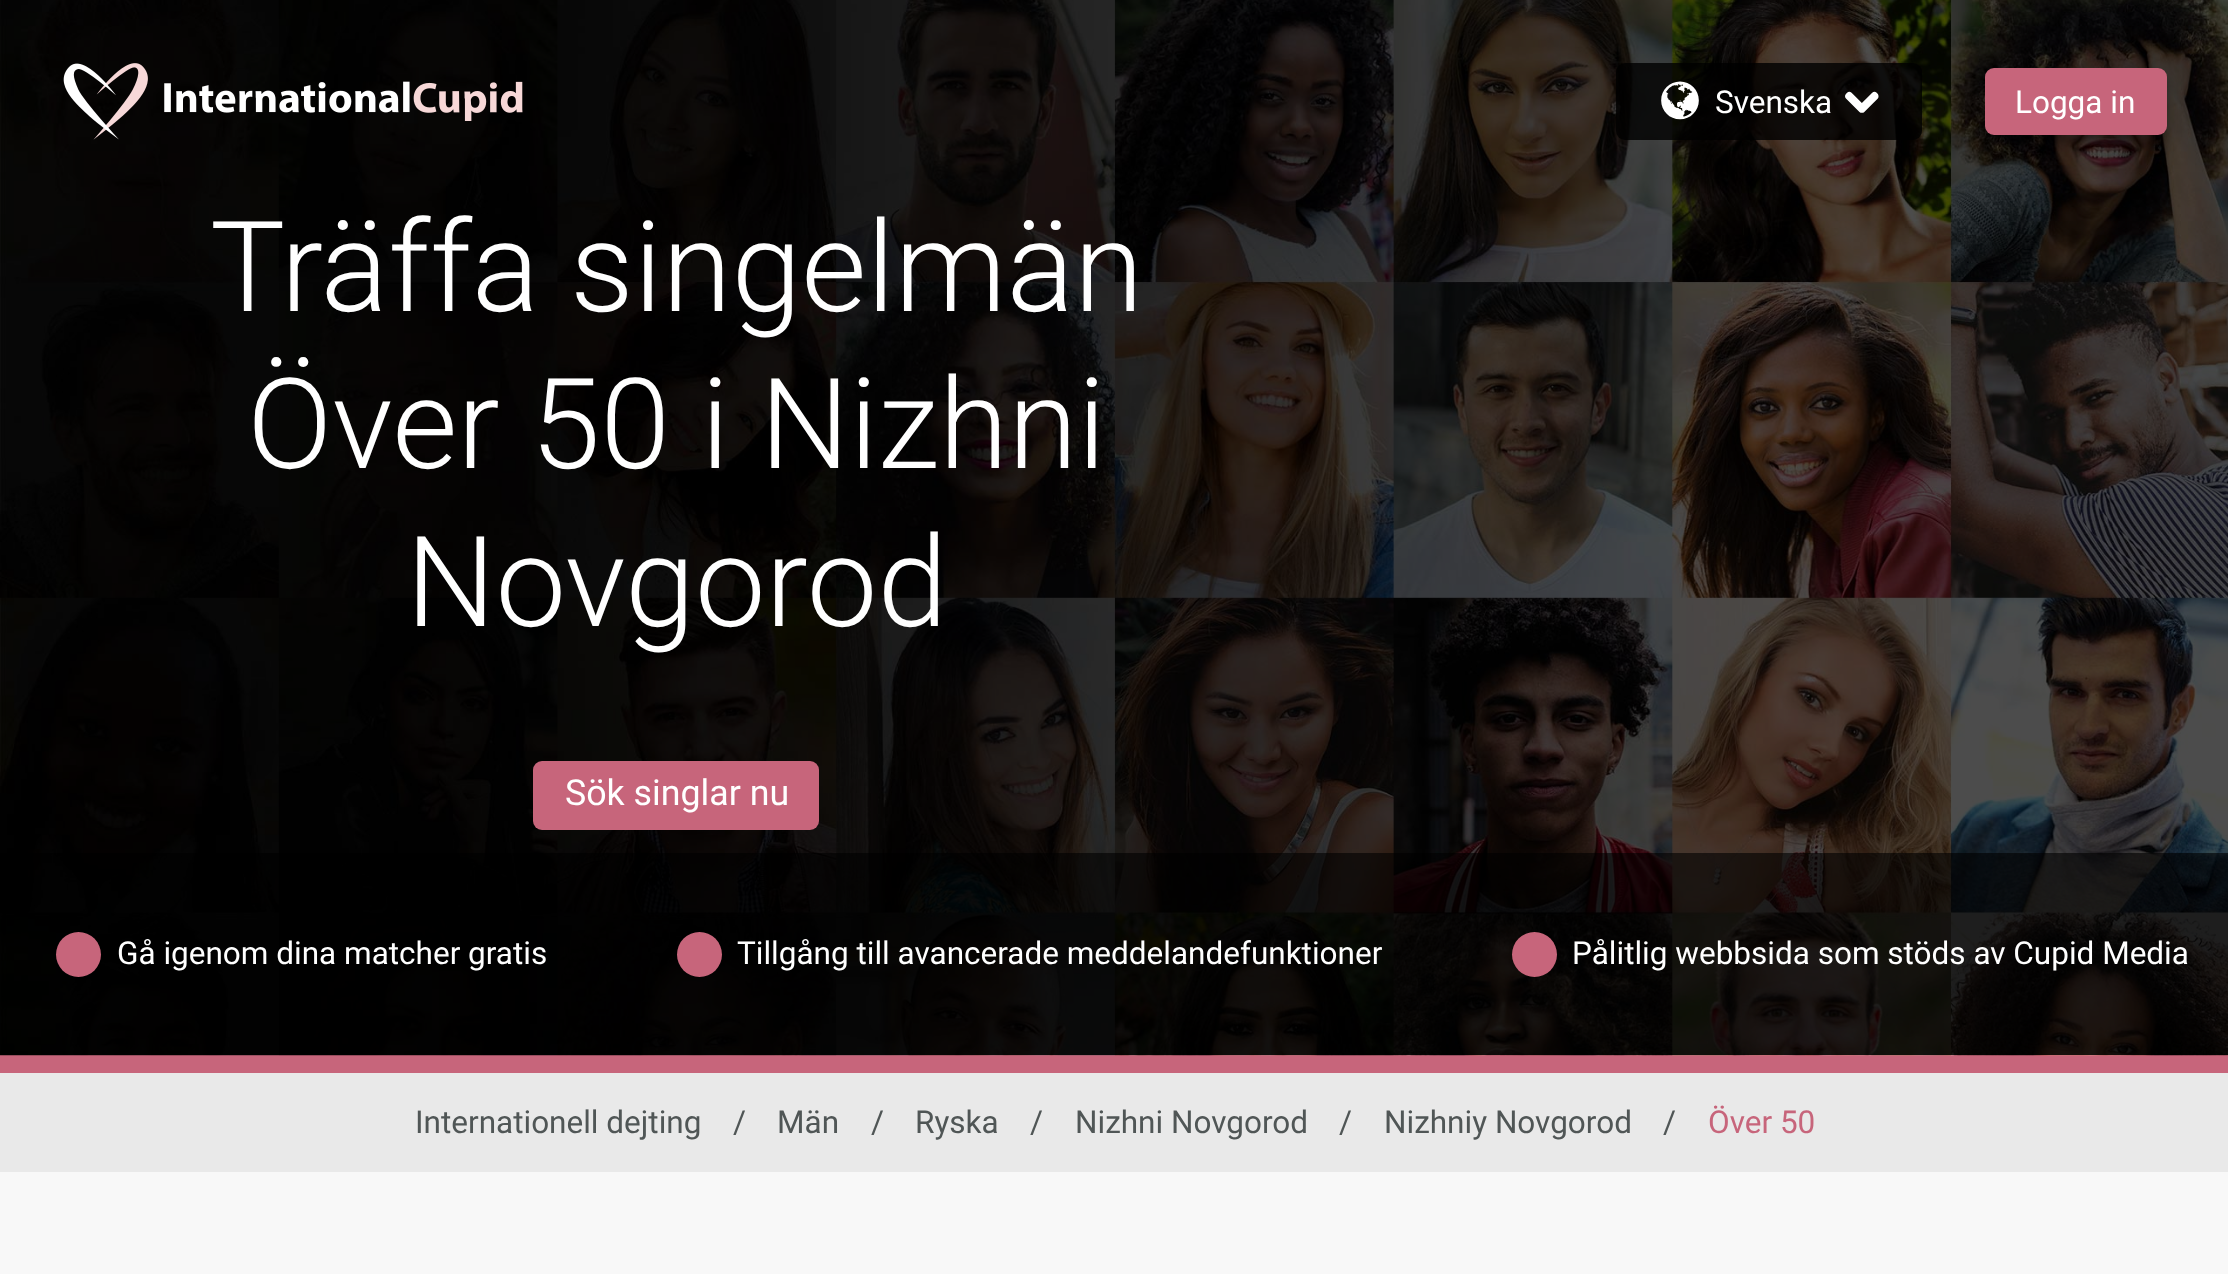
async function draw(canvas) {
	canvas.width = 2228;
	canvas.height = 1274;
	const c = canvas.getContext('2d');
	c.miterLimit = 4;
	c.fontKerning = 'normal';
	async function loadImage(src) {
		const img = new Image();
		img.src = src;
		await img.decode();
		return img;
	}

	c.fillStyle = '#f8f8f8';
	c.fillRect(0, 0, 2228, 1274);
	c.fillStyle = '#c7657b';
	c.fillRect(0, 1055, 2228, 18);
	c.drawImage(await loadImage('img5.png'), 0, 0, 2228, 1056);
	c.drawImage(await loadImage('img1.png'), 63, 63, 85, 77);
	c.drawImage(await loadImage('img2.png'), 164, 81, 359, 40);
	c.fillStyle = '#000000cc';
	c.beginPath();
	c.roundRect(1616, 63, 306, 77, 9);
	c.fill();
	c.drawImage(await loadImage('img3.png'), 1661, 81, 38, 39);
	c.font = '31.5px Roboto';
	c.fillStyle = '#fff';
	c.fillText('Svenska', 1715, 113);
	c.drawImage(await loadImage('img4.png'), 1845, 91, 34, 22);
	c.fillStyle = '#00000066';
	c.filter = 'blur(7px)';
	c.beginPath();
	c.roundRect(1985, 74, 182, 68, 9);
	c.fill();
	c.filter = 'none';
	c.fillStyle = '#c7657b';
	c.beginPath();
	c.roundRect(1985, 68, 182, 67, 9);
	c.fill();
	c.fillStyle = '#fff';
	c.fillText('Logga in', 2015, 113);
	c.font = '300 126px Roboto';
	for (const [text, x, y] of [
		['Träffa singelmän', 210, 311],
		['Över 50 i Nizhni', 247, 468],
		['Novgorod', 406, 626],
	]) {
		c.fillText(text, x, y);
	}
	c.fillStyle = '#c7657b';
	c.beginPath();
	c.roundRect(533, 761, 286, 69, 9);
	c.fill();
	c.font = '35.75px Roboto';
	c.fillStyle = '#fff';
	c.fillText('Sök singlar nu', 565, 805);
	c.fillStyle = '#00000099';
	c.fillRect(0, 853, 2228, 202);
	c.fillStyle = '#c7657b';
	c.beginPath();
	c.arc(78.5, 954.5, 22.5, 0, 2 * Math.PI);
	c.fill();
	c.font = '31.5px Roboto';
	c.fillStyle = '#fff';
	c.fillText('Gå igenom dina matcher gratis', 117, 964);
	c.fillStyle = '#c7657b';
	c.beginPath();
	c.arc(699.5, 954.5, 22.5, 0, 2 * Math.PI);
	c.fill();
	c.fillStyle = '#fff';
	c.fillText('Tillgång till avancerade meddelandefunktioner', 737, 964);
	c.fillStyle = '#c7657b';
	c.beginPath();
	c.arc(1534.5, 954.5, 22.5, 0, 2 * Math.PI);
	c.fill();
	c.fillStyle = '#fff';
	c.fillText('Pålitlig webbsida som stöds av Cupid Media', 1572, 964);
	c.fillStyle = '#e9e9e9';
	c.fillRect(0, 1073, 2228, 99);
	c.fillStyle = '#505656';
	for (const [text, x, y] of [
		['Internationell dejting', 415, 1133],
		['/', 733, 1133],
		['Män', 777, 1133],
		['/', 871, 1133],
		['Ryska', 915, 1133],
		['/', 1030, 1133],
		['Nizhni Novgorod', 1075, 1133],
		['/', 1339, 1133],
		['Nizhniy Novgorod', 1384, 1133],
		['/', 1663, 1133],
	]) {
		c.fillText(text, x, y);
	}
	c.fillStyle = '#c7657b';
	c.fillText('Över 50', 1708, 1133);
}

draw(document.querySelector('canvas'));
